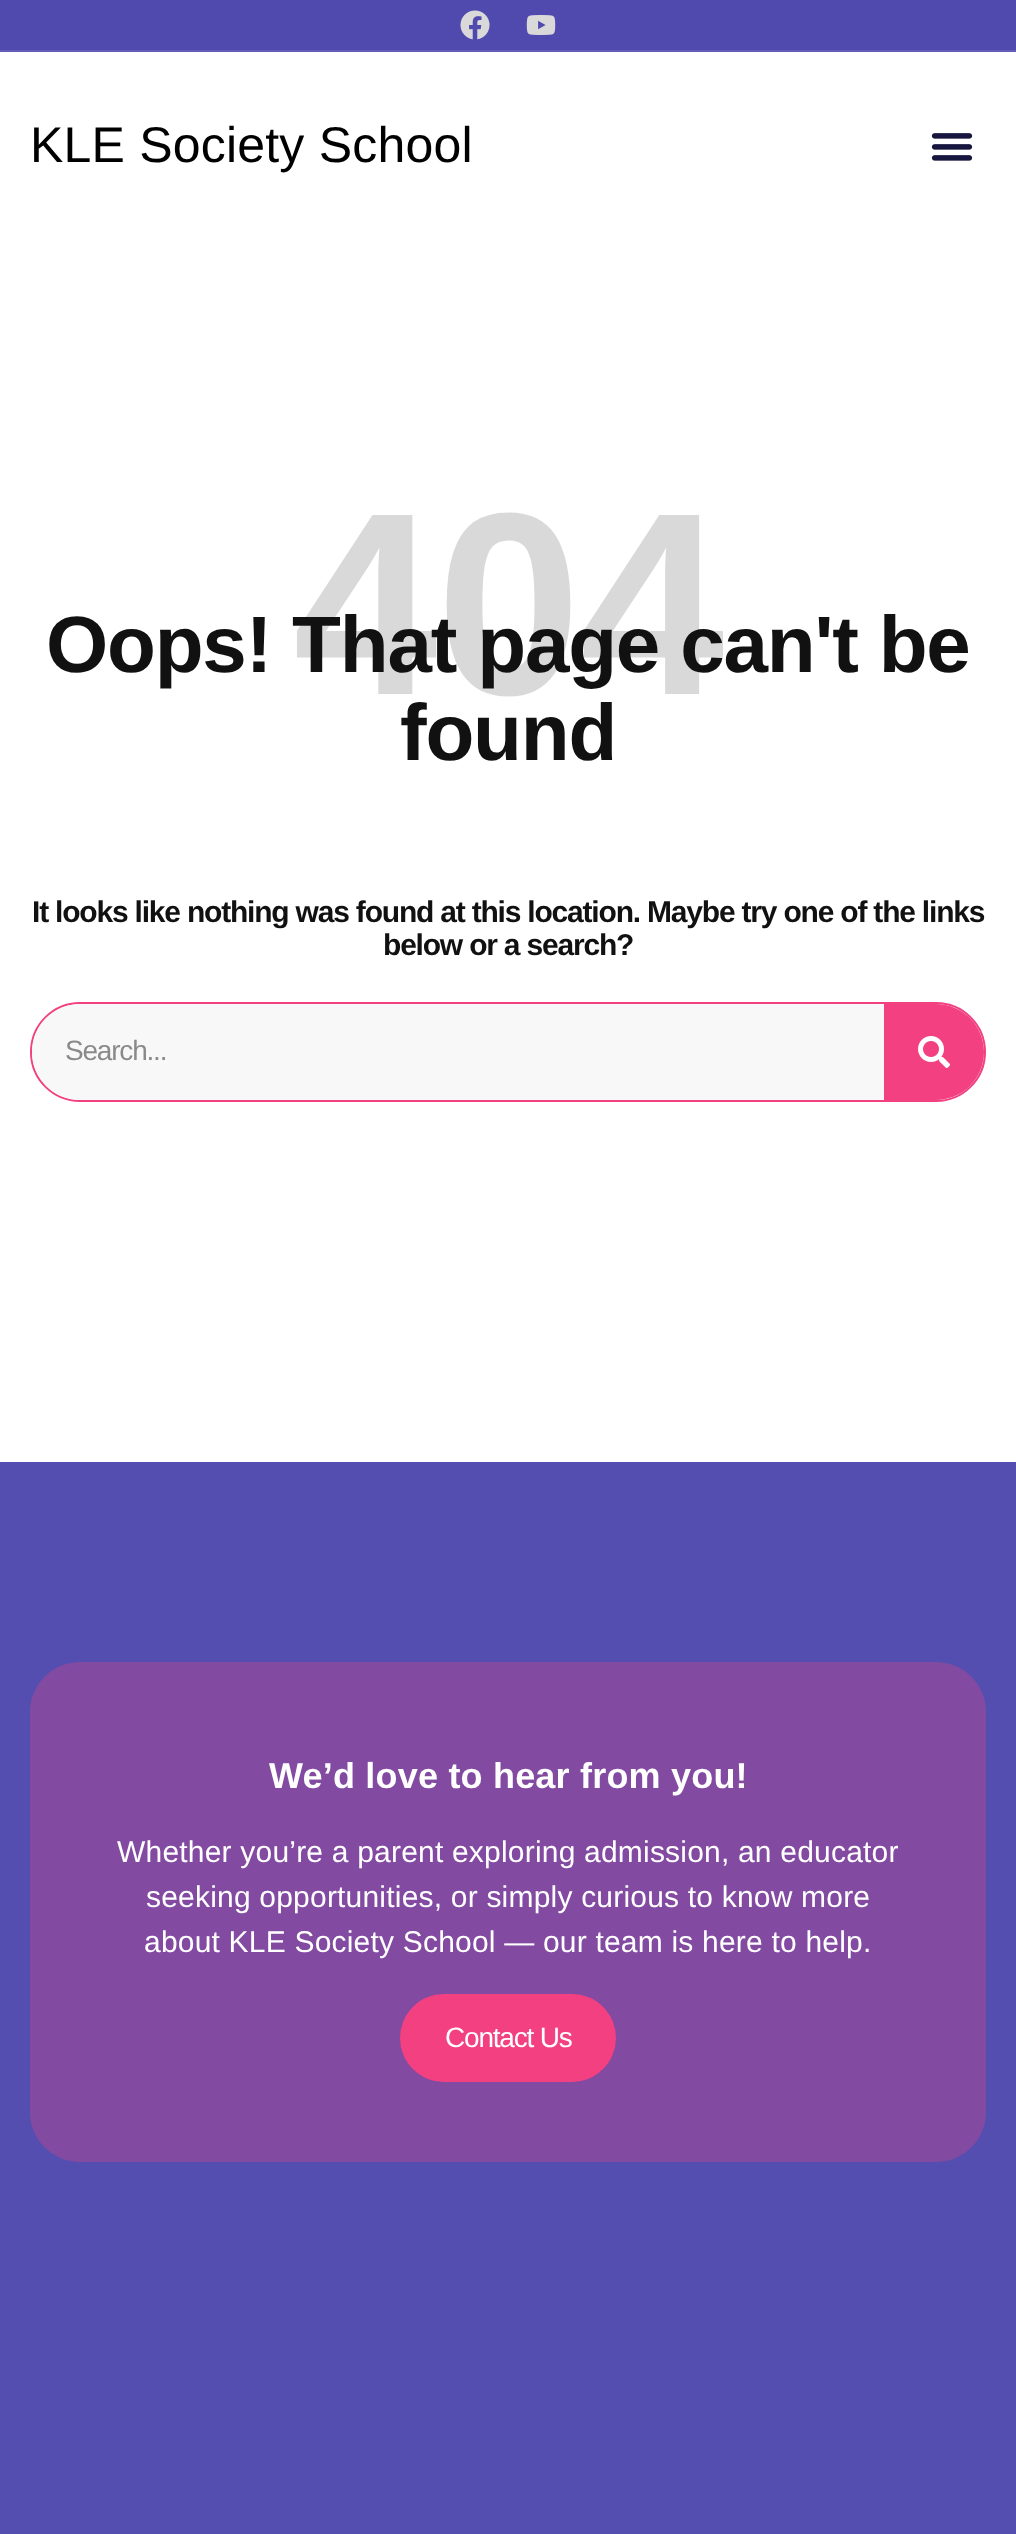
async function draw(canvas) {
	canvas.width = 1016;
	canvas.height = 2534;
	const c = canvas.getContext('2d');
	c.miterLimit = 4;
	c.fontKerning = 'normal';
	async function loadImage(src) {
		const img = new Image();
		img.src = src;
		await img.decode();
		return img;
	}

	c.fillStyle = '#fff';
	c.fillRect(0, 0, 1016, 2534);
	c.fillStyle = '#504aaf';
	c.fillRect(0, 0, 1016, 50);
	c.fillStyle = '#625db7';
	c.fillRect(0, 50, 1016, 2);
	c.drawImage(await loadImage('img1.png'), 460, 10, 30, 30);
	c.drawImage(await loadImage('img2.png'), 526, 15, 30, 20);
	c.letterSpacing = '0.2px';
	c.font = '50px Liberation Sans';
	c.fillStyle = '#000';
	c.fillText('KLE Society School', 30, 162);
	c.drawImage(await loadImage('img3.png'), 931, 133, 42, 28);
	c.letterSpacing = '-1.2px';
	c.font = 'bold 260px Liberation Sans';
	c.fillStyle = '#d9d9d9';
	c.fillText('404', 293, 694);
	c.font = 'bold 80px Liberation Sans';
	c.fillStyle = '#111';
	c.fillText('Oops! That page can\'t be', 46, 672);
	c.fillText('found', 400, 760);
	c.font = 'bold 30px Liberation Sans';
	c.fillText('It looks like nothing was found at this location. Maybe try one of the links', 32, 922);
	c.fillText('below or a search?', 383, 955);
	c.fillStyle = '#f8f8f8';
	c.beginPath();
	c.roundRect(31, 1003, 954, 98, 49);
	c.fill();
	c.strokeStyle = '#f24080';
	c.lineWidth = 2;
	c.stroke();
	c.beginPath();
	c.roundRect(32, 1004, 852, 96, 48);
	c.fill();
	c.font = '28px Liberation Sans';
	c.fillStyle = '#8a8a8a';
	c.fillText('Search...', 65, 1060);
	c.fillStyle = '#f24080';
	c.beginPath();
	c.roundRect(884, 1004, 100, 96, [0, 48, 48, 0]);
	c.fill();
	c.drawImage(await loadImage('img4.png'), 918, 1036, 32, 32);
	c.fillStyle = '#544eb1';
	c.fillRect(0, 1462, 1016, 1072);
	c.fillStyle = '#834aa2';
	c.beginPath();
	c.roundRect(30, 1662, 956, 500, 50);
	c.fill();
	c.letterSpacing = '0.2px';
	c.font = 'bold 36px Liberation Sans';
	c.fillStyle = '#fff';
	c.fillText('We’d love to hear from you!', 269, 1788);
	c.font = '30px Liberation Sans';
	for (const [text, x, y] of [
		['Whether you’re a parent exploring admission, an educator', 117, 1862],
		['seeking opportunities, or simply curious to know more', 146, 1907],
		['about KLE Society School — our team is here to help.', 144, 1952],
	]) {
		c.fillText(text, x, y);
	}
	c.fillStyle = '#f24080';
	c.beginPath();
	c.roundRect(400, 1994, 216, 88, 44);
	c.fill();
	c.letterSpacing = '-1.2px';
	c.font = '28px Liberation Sans';
	c.fillStyle = '#fff';
	c.fillText('Contact Us', 445, 2047);
}

draw(document.querySelector('canvas'));
